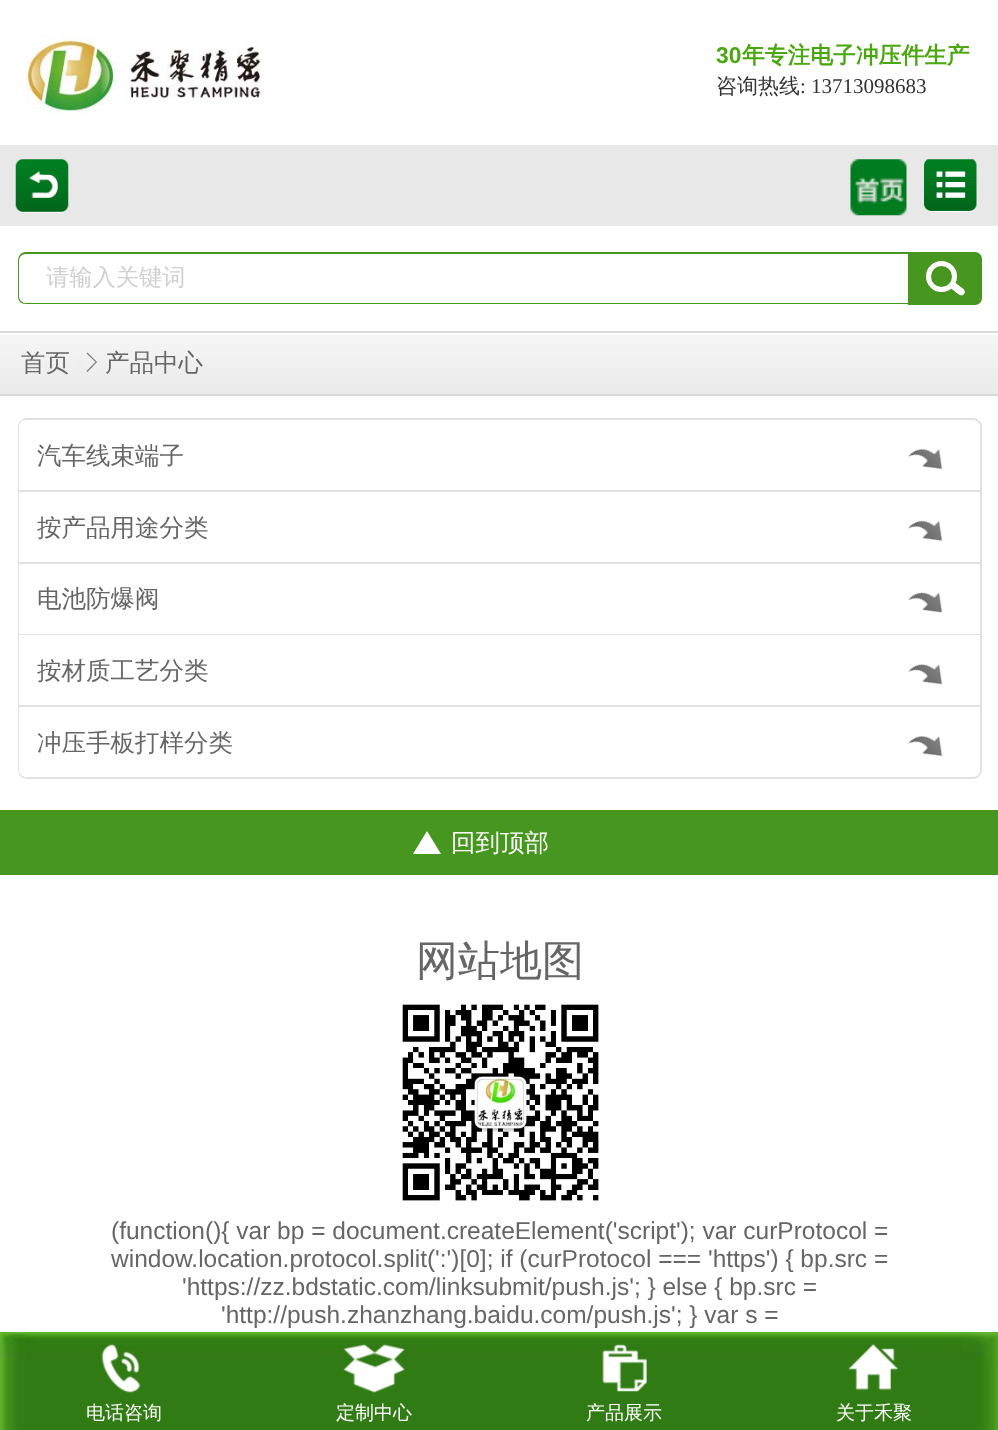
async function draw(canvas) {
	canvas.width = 998;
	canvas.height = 1430;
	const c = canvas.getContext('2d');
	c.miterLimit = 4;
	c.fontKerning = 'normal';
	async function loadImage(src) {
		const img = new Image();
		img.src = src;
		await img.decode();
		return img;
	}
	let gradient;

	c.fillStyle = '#fff';
	c.fillRect(0, 0, 998, 1430);
	c.drawImage(await loadImage('img1.png'), 26, 35, 238, 81);
	c.font = 'bold 22.75px Liberation Sans';
	c.fillStyle = '#48a80d';
	c.fillText('30', 716, 63);
	c.font = 'bold 22.75px WenQuanYi Zen Hei';
	c.fillText('年专注电子冲压件生产', 742, 63);
	c.font = '500 21px WenQuanYi Zen Hei';
	c.fillStyle = '#333';
	c.fillText('咨询热线', 716, 93);
	c.font = '21px Liberation Serif';
	c.fillText(': 13713098683', 800, 93);
	c.fillStyle = '#e8e8e8';
	c.fillRect(0, 145, 998, 81);
	c.drawImage(await loadImage('img2.png'), 15, 159, 54, 54);
	c.drawImage(await loadImage('img3.png'), 850, 159, 57, 57);
	c.drawImage(await loadImage('img4.png'), 924, 159, 53, 53);
	c.fillStyle = '#469620';
	c.beginPath();
	c.moveTo(26, 252);
	c.lineTo(908, 252);
	c.lineTo(908, 304);
	c.lineTo(26, 304);
	c.bezierCurveTo(21, 304, 18, 301, 18, 296);
	c.lineTo(18, 261);
	c.bezierCurveTo(18, 256, 21, 252, 26, 252);
	c.closePath();
	c.moveTo(26, 254);
	c.lineTo(908, 254);
	c.lineTo(908, 303);
	c.lineTo(26, 303);
	c.bezierCurveTo(22, 303, 19, 300, 19, 296);
	c.lineTo(19, 261);
	c.bezierCurveTo(19, 257, 22, 254, 26, 254);
	c.closePath();
	c.fill('evenodd');
	c.save();
	c.beginPath();
	c.rect(19, 266, 889, 25);
	c.clip();
	c.font = '500 23.25px WenQuanYi Zen Hei';
	c.fillStyle = '#d0d0d0';
	c.fillText('请输入关键词', 46, 285);
	c.restore();
	c.beginPath();
	c.roundRect(908, 252, 74, 53, [0, 7, 7, 0]);
	c.fill();
	c.beginPath();
	c.arc(941.5, 276.5, 13, 0, 2 * Math.PI);
	c.strokeStyle = '#fff';
	c.lineWidth = 5;
	c.stroke();
	c.fillStyle = '#fff';
	c.beginPath();
	c.moveTo(950.5, 283.5);
	c.bezierCurveTo(953, 280, 957, 284, 959.5, 286);
	c.bezierCurveTo(961.5, 287.5, 967, 290.5, 964, 294);
	c.bezierCurveTo(961.5, 297.5, 957.5, 293.5, 955, 291.5);
	c.bezierCurveTo(953, 290, 947.5, 287, 950.5, 283.5);
	c.closePath();
	c.fill();
	gradient = c.createLinearGradient(500, 332, 500, 394);
	gradient.addColorStop(0, '#f6f6f6');
	gradient.addColorStop(1, '#eaeaea');
	c.fillStyle = gradient;
	c.fillRect(0, 335, 998, 59);
	c.fillStyle = '#d9d9d9';
	c.fillRect(0, 331, 998, 2);
	c.fillRect(0, 394, 998, 2);
	c.font = '500 24.5px WenQuanYi Zen Hei';
	c.fillStyle = '#666';
	c.fillText('首页', 21, 371);
	c.fillStyle = '#7c7c7c';
	c.beginPath();
	c.moveTo(87.5, 352.5);
	c.lineTo(97, 362);
	c.lineTo(87.5, 372);
	c.lineTo(77.5, 362);
	c.closePath();
	c.fill();
	gradient = c.createLinearGradient(91, 357, 81, 367);
	gradient.addColorStop(0, '#f2f2f2');
	gradient.addColorStop(1, '#eee');
	c.fillStyle = gradient;
	c.beginPath();
	c.moveTo(85.5, 352.5);
	c.lineTo(95.5, 362);
	c.lineTo(85.5, 372);
	c.lineTo(75.5, 362);
	c.closePath();
	c.fill();
	c.fillStyle = '#666';
	c.fillText('产品中心', 105, 371);
	c.beginPath();
	c.roundRect(19, 419, 962, 359, 8);
	c.strokeStyle = '#e1e1e1';
	c.lineWidth = 2;
	c.stroke();
	c.fillStyle = '#fff';
	c.beginPath();
	c.roundRect(19, 420, 961, 72, [7, 7, 0, 0]);
	c.fill();
	c.fillStyle = '#e1e1e1';
	c.fillRect(19, 490, 961, 2);
	c.fillStyle = '#666';
	c.fillText('汽车线束端子', 37, 464);
	c.drawImage(await loadImage('img5.png'), 908, 448, 35, 22);
	c.fillStyle = '#fff';
	c.fillRect(19, 492, 1, 70);
	c.fillStyle = '#e1e1e1';
	c.fillRect(19, 562, 961, 2);
	c.fillStyle = '#666';
	c.fillText('按产品用途分类', 37, 536);
	c.drawImage(await loadImage('img6.png'), 908, 520, 35, 21);
	c.fillStyle = '#fff';
	c.fillRect(19, 564, 1, 70);
	c.fillStyle = '#e1e1e1';
	c.fillRect(19, 634, 961, 1);
	c.fillStyle = '#666';
	c.fillText('电池防爆阀', 37, 607);
	c.drawImage(await loadImage('img7.png'), 908, 592, 35, 21);
	c.fillStyle = '#fff';
	c.fillRect(19, 635, 1, 70);
	c.fillStyle = '#e1e1e1';
	c.fillRect(19, 705, 961, 2);
	c.fillStyle = '#666';
	c.fillText('按材质工艺分类', 37, 679);
	c.drawImage(await loadImage('img8.png'), 908, 664, 35, 21);
	c.fillStyle = '#fff';
	c.beginPath();
	c.roundRect(19, 707, 961, 70, [0, 0, 7, 7]);
	c.fill();
	c.fillStyle = '#666';
	c.fillText('冲压手板打样分类', 37, 751);
	c.drawImage(await loadImage('img5.png'), 908, 735, 35, 22);
	c.fillStyle = '#46961f';
	c.fillRect(0, 810, 998, 65);
	c.fillStyle = '#fff';
	c.beginPath();
	c.moveTo(441, 854);
	c.lineTo(413, 854);
	c.lineTo(427, 831);
	c.closePath();
	c.fill();
	c.fillText('回到顶部', 451, 851);
	c.font = '500 42px WenQuanYi Zen Hei';
	c.fillStyle = '#666';
	c.fillText('网站地图', 416, 975);
	c.drawImage(await loadImage('img9.png'), 402, 1004, 197, 197);
	c.font = '24.5px Liberation Sans';
	for (const [text, x, y] of [
		['(function(){ var bp = document.createElement(\'script\'); var curProtocol =', 111, 1239],
		['window.location.protocol.split(\':\')[0]; if (curProtocol === \'https\') { bp.src =', 111, 1267],
		['\'https://zz.bdstatic.com/linksubmit/push.js\'; } else { bp.src =', 182, 1295],
		['\'http://push.zhanzhang.baidu.com/push.js\'; } var s =', 221, 1323],
	]) {
		c.fillText(text, x, y);
	}
	c.drawImage(await loadImage('img10.png'), 0, 1332, 998, 98);
	c.drawImage(await loadImage('img11.png'), 101, 1344, 40, 49);
	c.font = '500 19px WenQuanYi Zen Hei';
	c.fillStyle = '#fff';
	c.fillText('电话咨询', 86, 1419);
	c.drawImage(await loadImage('img12.png'), 343, 1344, 62, 49);
	c.fillText('定制中心', 336, 1419);
	c.drawImage(await loadImage('img13.png'), 602, 1344, 45, 48);
	c.fillText('产品展示', 586, 1419);
	c.drawImage(await loadImage('img14.png'), 848, 1344, 50, 47);
	c.fillText('关于禾聚', 836, 1419);
}

draw(document.querySelector('canvas'));
